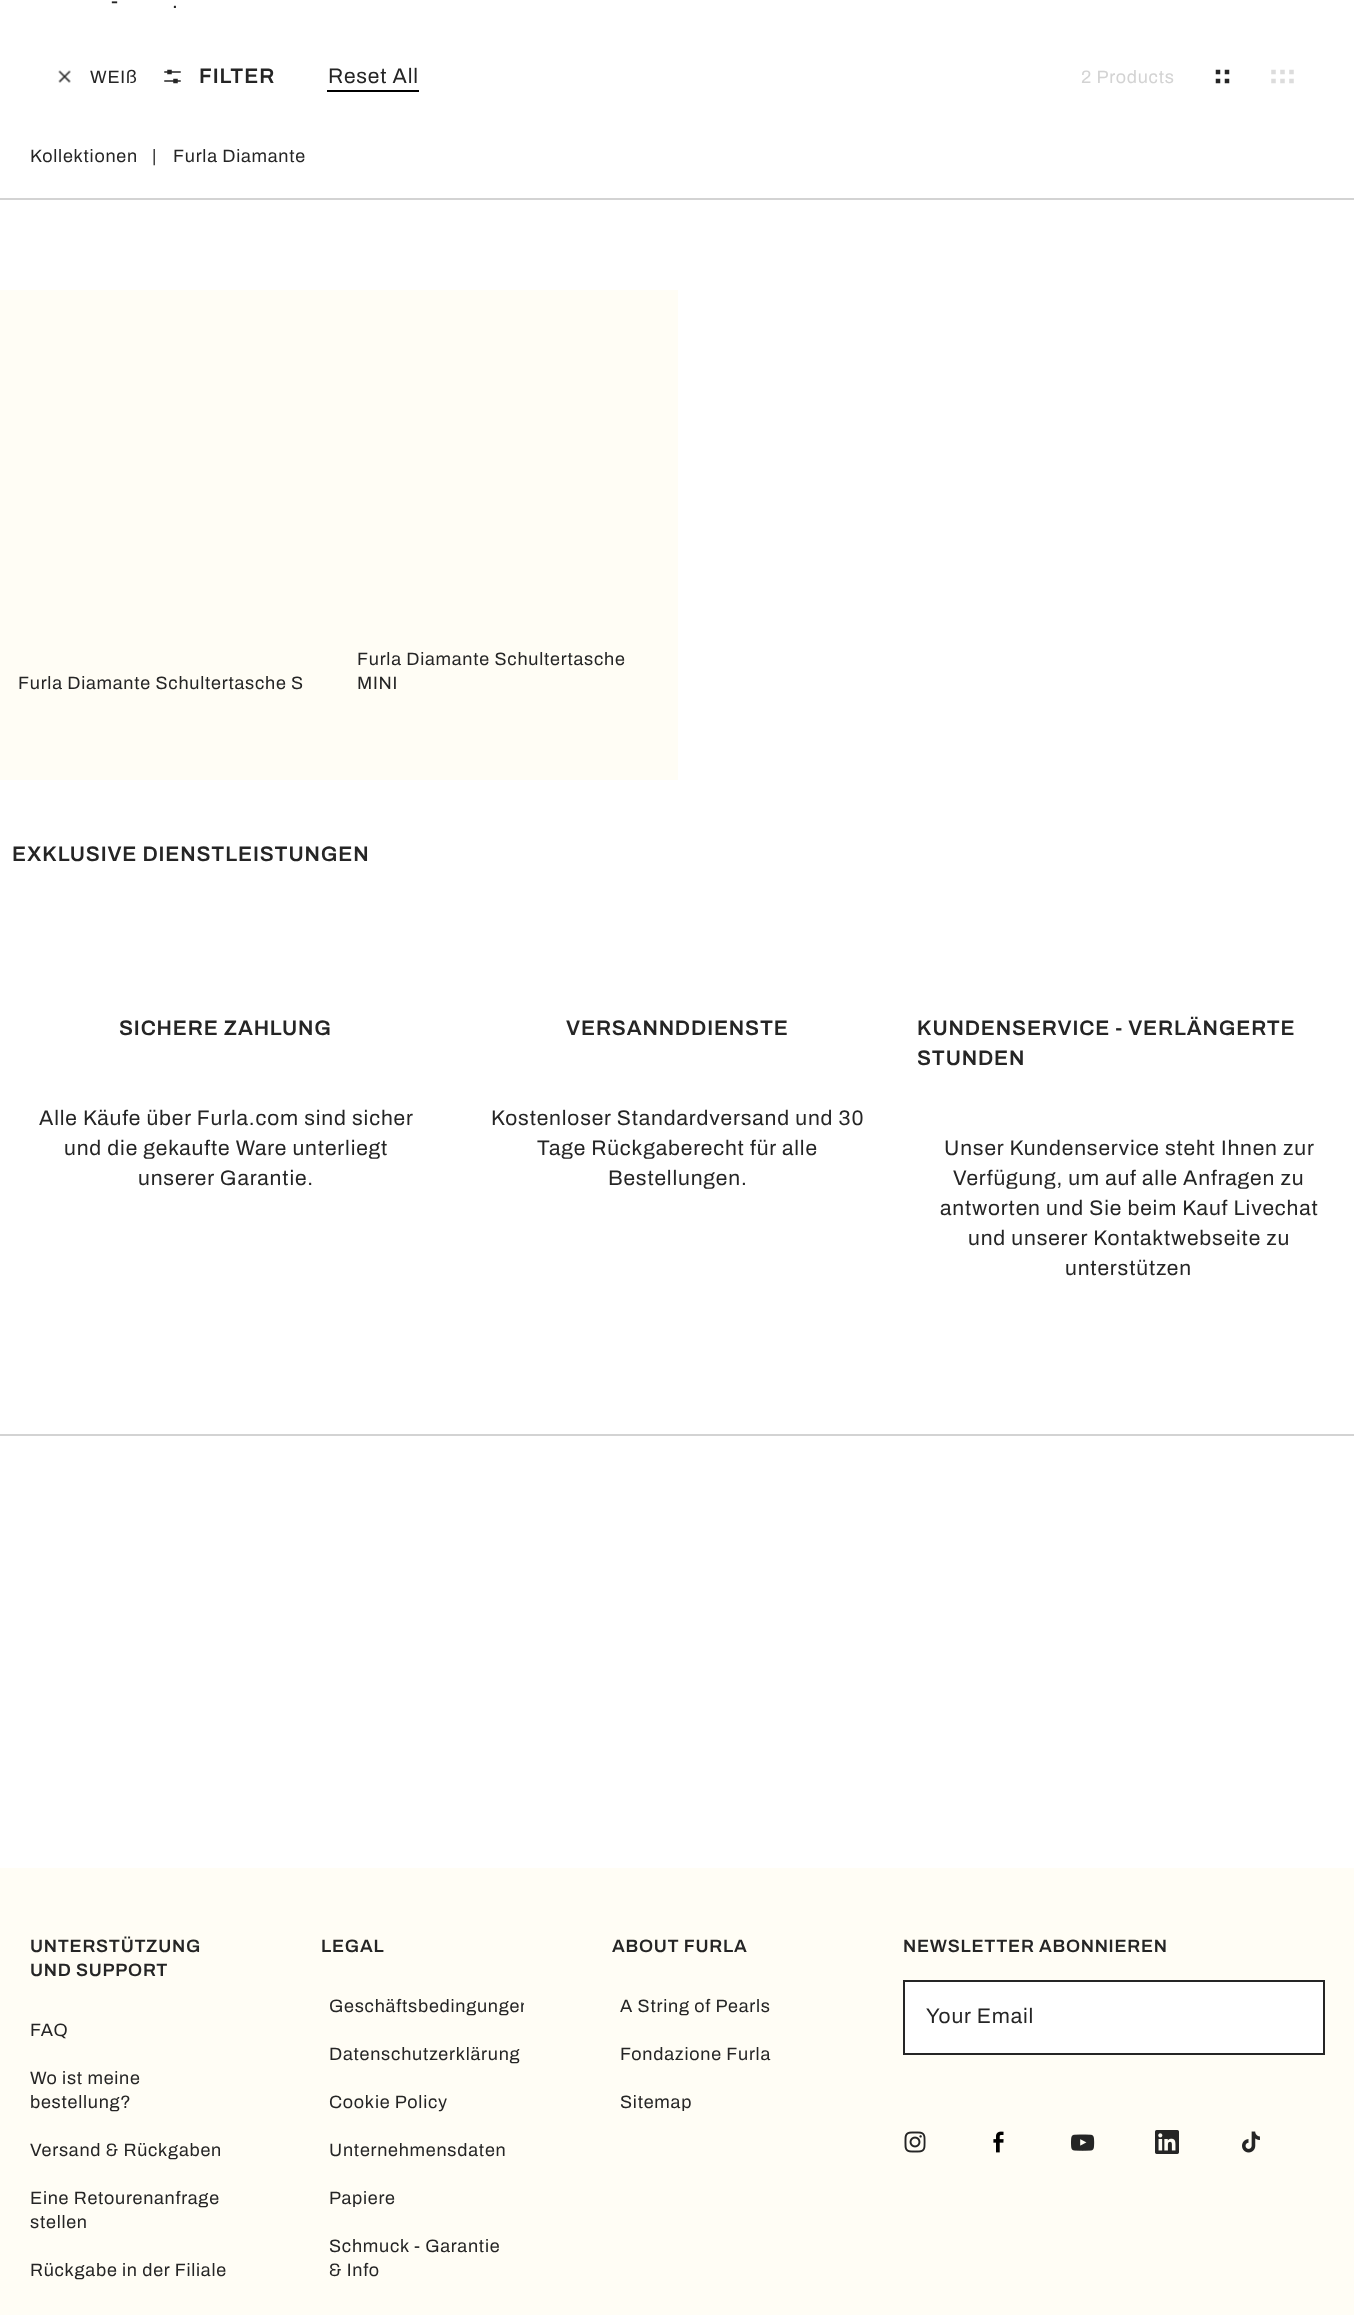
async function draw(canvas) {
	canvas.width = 1354;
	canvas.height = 2315;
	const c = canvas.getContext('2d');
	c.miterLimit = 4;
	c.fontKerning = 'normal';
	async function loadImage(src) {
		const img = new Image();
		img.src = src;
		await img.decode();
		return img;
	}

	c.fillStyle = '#fff';
	c.fillRect(0, 0, 1354, 2315);
	c.letterSpacing = '0.85px';
	c.font = '21px Archivo';
	c.fillStyle = '#252525';
	c.fillText('-', 111, 8);
	c.fillText('.', 172, 8);
	c.drawImage(await loadImage('img1.png'), 58, 70, 13, 13);
	c.letterSpacing = '0.75px';
	c.font = '18px Archivo';
	c.fillText('WEIß', 90, 83);
	c.drawImage(await loadImage('img2.png'), 164, 69, 17, 15);
	c.letterSpacing = '0.85px';
	c.font = '600 21px Archivo';
	c.fillText('FILTER', 199, 83);
	c.font = '21px Archivo';
	c.fillText('Reset All', 328, 83);
	c.fillStyle = '#000';
	c.fillRect(327, 90, 92, 2);
	c.letterSpacing = '0.75px';
	c.font = '18px Archivo';
	c.fillStyle = '#d3d3d3';
	c.fillText('2 Products', 1081, 83);
	c.drawImage(await loadImage('img3.png'), 1215, 69, 15, 15);
	c.drawImage(await loadImage('img4.png'), 1271, 69, 23, 15);
	c.fillStyle = '#fffdf5';
	c.fillRect(0, 290, 678, 490);
	c.fillStyle = '#252525';
	for (const [text, x, y] of [
		['Furla Diamante Schultertasche S', 18, 689],
		['Furla Diamante Schultertasche', 357, 665],
		['MINI', 357, 689],
	]) {
		c.fillText(text, x, y);
	}
	c.fillStyle = '#d3d3d3';
	c.fillRect(0, 198, 1354, 2);
	c.fillStyle = '#252525';
	for (const [text, x, y] of [
		['Kollektionen', 30, 162],
		['|', 152, 162],
		['Furla Diamante', 173, 162],
	]) {
		c.fillText(text, x, y);
	}
	c.fillStyle = '#fffdf5';
	c.fillRect(0, 1868, 1354, 447);
	c.fillStyle = '#d3d3d3';
	c.fillRect(0, 1434, 1354, 2);
	c.letterSpacing = '0.85px';
	c.font = '600 21px Archivo';
	c.fillStyle = '#252525';
	c.fillText('EXKLUSIVE DIENSTLEISTUNGEN', 12, 861);
	c.fillText('SICHERE ZAHLUNG', 119, 1035);
	c.font = '21px Archivo';
	for (const [text, x, y] of [
		['Alle Käufe über Furla.com sind sicher', 39, 1125],
		['und die gekaufte Ware unterliegt', 64, 1155],
		['unserer Garantie.', 138, 1185],
	]) {
		c.fillText(text, x, y);
	}
	c.font = '600 21px Archivo';
	c.fillText('VERSANNDDIENSTE', 566, 1035);
	c.font = '21px Archivo';
	for (const [text, x, y] of [
		['Kostenloser Standardversand und 30', 491, 1125],
		['Tage Rückgaberecht für alle', 537, 1155],
		['Bestellungen.', 608, 1185],
	]) {
		c.fillText(text, x, y);
	}
	c.font = '600 21px Archivo';
	c.fillText('KUNDENSERVICE - VERLÄNGERTE', 917, 1035);
	c.fillText('STUNDEN', 917, 1065);
	c.font = '21px Archivo';
	for (const [text, x, y] of [
		['Unser Kundenservice steht Ihnen zur', 944, 1155],
		['Verfügung, um auf alle Anfragen zu', 953, 1185],
		['antworten und Sie beim Kauf Livechat', 940, 1215],
		['und unserer Kontaktwebseite zu', 968, 1245],
		['unterstützen', 1065, 1275],
	]) {
		c.fillText(text, x, y);
	}
	c.letterSpacing = '0.75px';
	c.font = '600 18px Archivo';
	c.fillText('UNTERSTÜTZUNG', 30, 1952);
	c.fillText('UND SUPPORT', 30, 1976);
	c.font = '18px Archivo';
	for (const [text, x, y] of [
		['FAQ', 30, 2036],
		['Wo ist meine', 30, 2084],
		['bestellung?', 30, 2108],
		['Versand & Rückgaben', 30, 2156],
		['Eine Retourenanfrage', 30, 2204],
		['stellen', 30, 2228],
		['Rückgabe in der Filiale', 30, 2276],
	]) {
		c.fillText(text, x, y);
	}
	c.font = '600 18px Archivo';
	c.fillText('LEGAL', 321, 1952);
	c.save();
	c.beginPath();
	c.rect(321, 1994, 203, 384);
	c.clip();
	c.font = '18px Archivo';
	c.fillText('Geschäftsbedingungen', 329, 2012);
	c.restore();
	c.font = '18px Archivo';
	for (const [text, x, y] of [
		['Datenschutzerklärung', 329, 2060],
		['Cookie Policy', 329, 2108],
		['Unternehmensdaten', 329, 2156],
		['Papiere', 329, 2204],
		['Schmuck - Garantie', 329, 2252],
		['& Info', 329, 2276],
	]) {
		c.fillText(text, x, y);
	}
	c.font = '600 18px Archivo';
	c.fillText('ABOUT FURLA', 612, 1952);
	c.font = '18px Archivo';
	for (const [text, x, y] of [
		['A String of Pearls', 620, 2012],
		['Fondazione Furla', 620, 2060],
		['Sitemap', 620, 2108],
	]) {
		c.fillText(text, x, y);
	}
	c.font = '600 18px Archivo';
	c.fillText('NEWSLETTER ABONNIEREN', 903, 1952);
	c.fillStyle = '#fff';
	c.beginPath();
	c.rect(904, 1981, 420, 73);
	c.fill();
	c.strokeStyle = '#252525';
	c.lineWidth = 2;
	c.stroke();
	c.letterSpacing = '0.85px';
	c.font = '21px Archivo';
	c.fillStyle = '#252525';
	c.fillText('Your Email', 926, 2023);
	c.drawImage(await loadImage('img5.png'), 904, 2131, 22, 22);
	c.drawImage(await loadImage('img6.png'), 993, 2131, 11, 22);
	c.drawImage(await loadImage('img7.png'), 1071, 2134, 24, 17);
	c.drawImage(await loadImage('img8.png'), 1155, 2130, 24, 24);
	c.drawImage(await loadImage('img9.png'), 1242, 2131, 18, 22);
}

draw(document.querySelector('canvas'));
